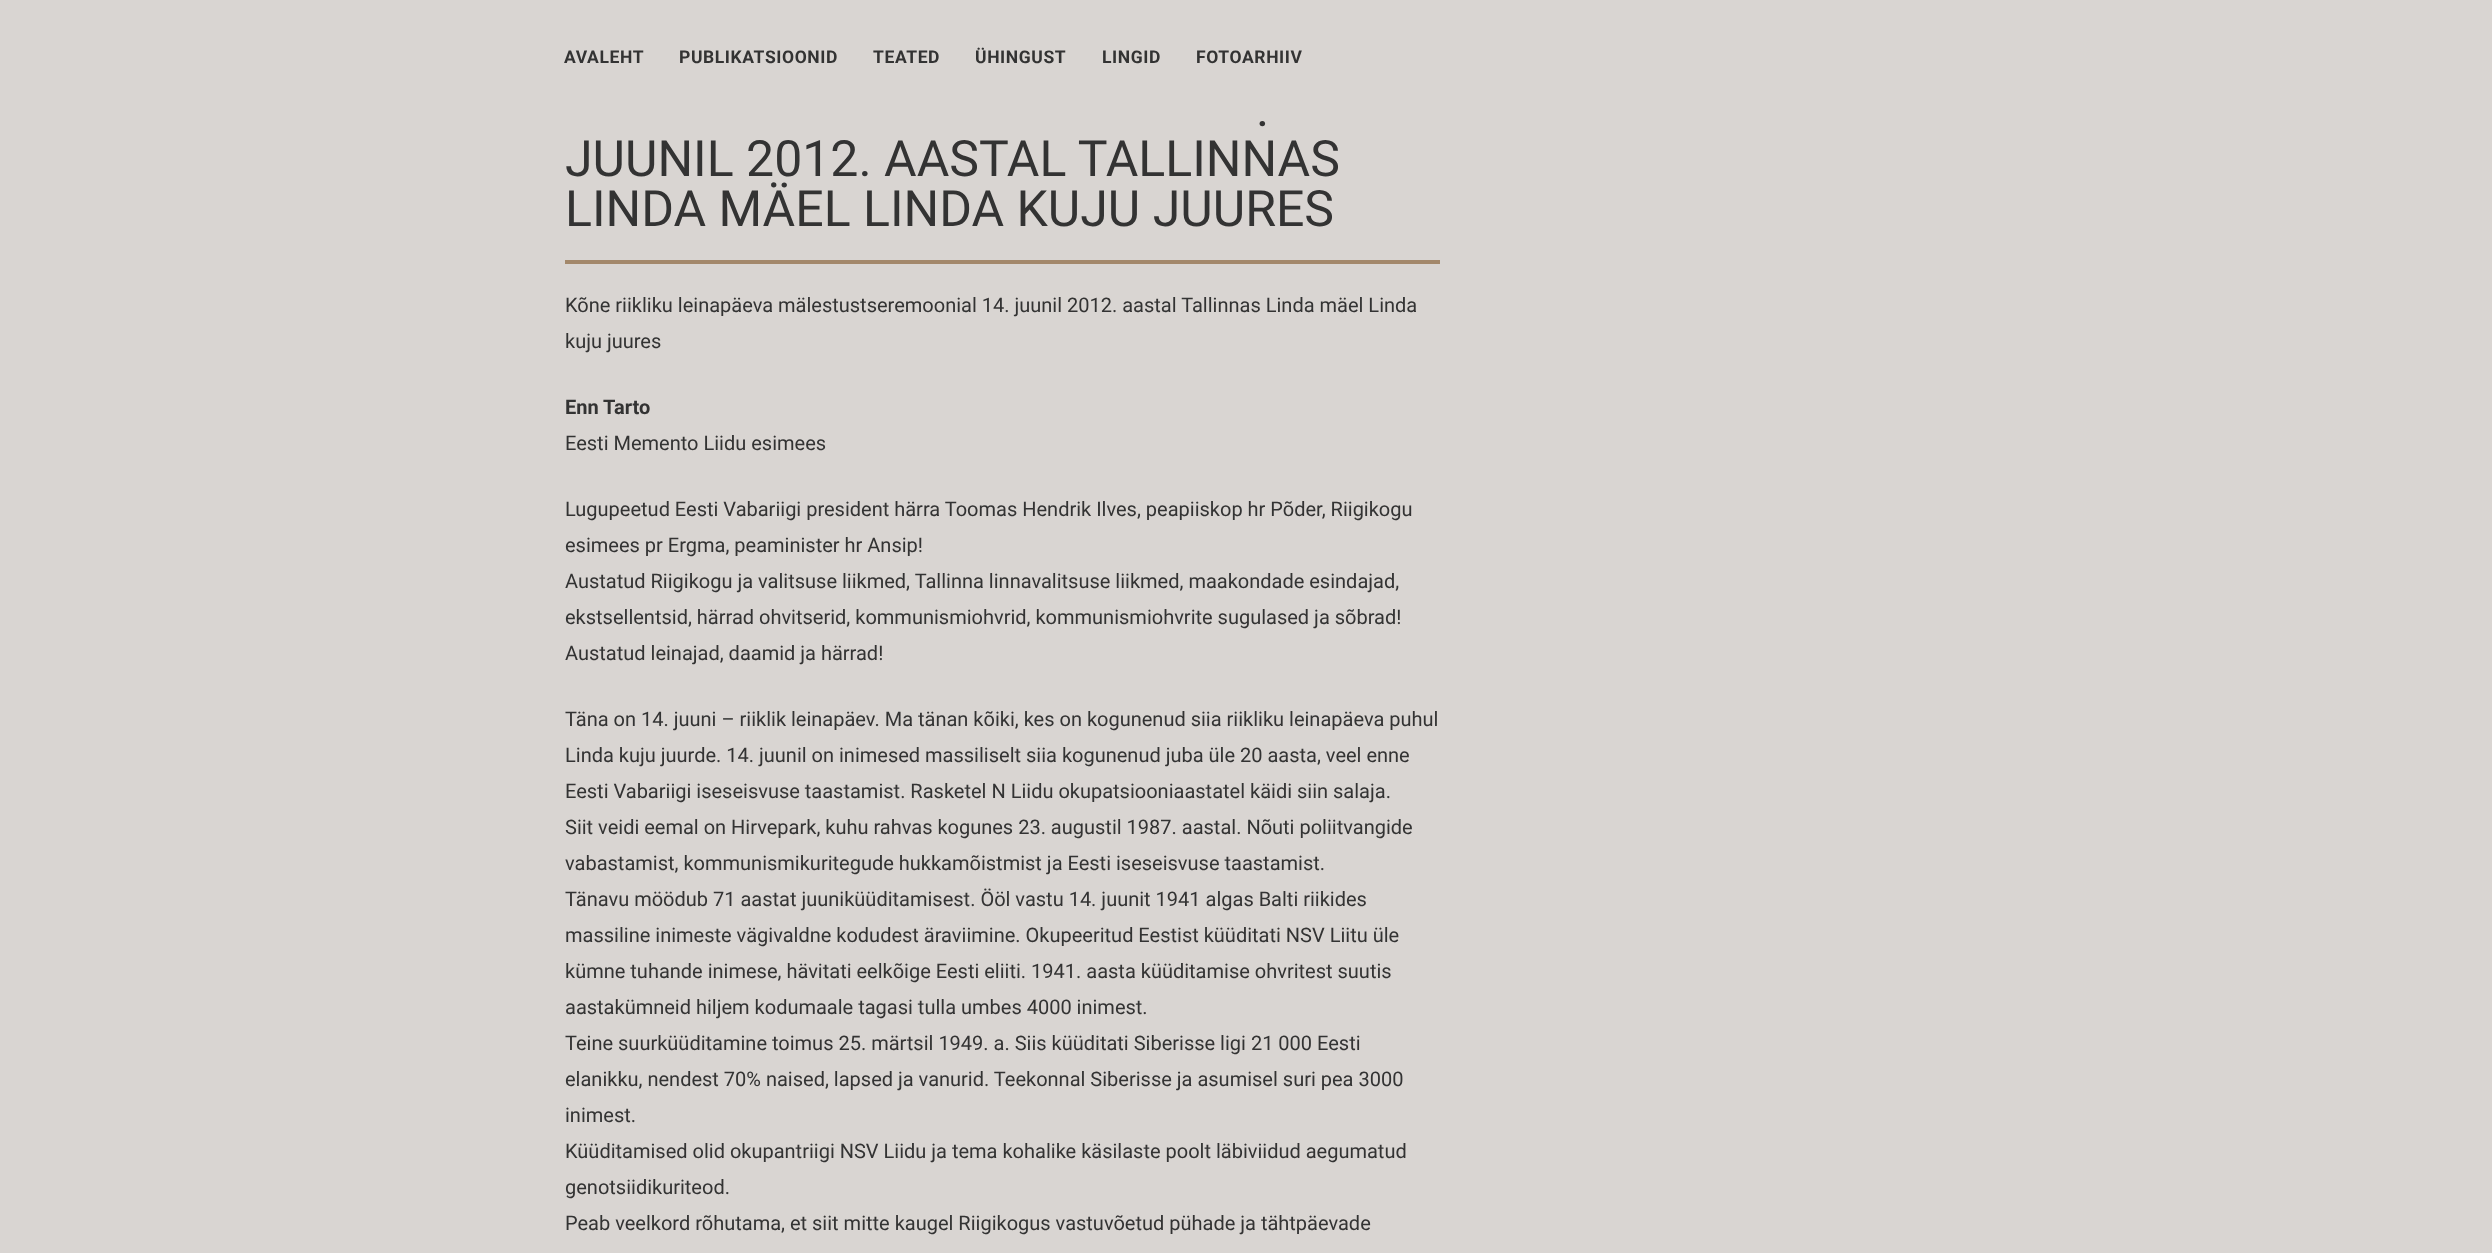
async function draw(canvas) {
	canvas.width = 2492;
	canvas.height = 1253;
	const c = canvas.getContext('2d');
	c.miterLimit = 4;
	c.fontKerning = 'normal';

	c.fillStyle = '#d9d5d2';
	c.fillRect(0, 0, 2492, 1253);
	c.letterSpacing = '0.6px';
	c.font = 'bold 17.5px Roboto';
	c.fillStyle = '#333';
	for (const [text, x, y] of [
		['AVALEHT', 564, 63],
		['PUBLIKATSIOONID', 679, 63],
		['TEATED', 873, 63],
		['ÜHINGUST', 975, 63],
		['LINGID', 1102, 63],
		['FOTOARHIIV', 1196, 63],
	]) {
		c.fillText(text, x, y);
	}
	c.fillStyle = '#a3886b';
	c.fillRect(565, 260, 875, 4);
	c.letterSpacing = '0px';
	c.font = '50px Roboto';
	c.fillStyle = '#333';
	for (const [text, x, y] of [
		['.', 1256, 126],
		['JUUNIL 2012. AASTAL TALLINNAS', 565, 176],
		['LINDA MÄEL LINDA KUJU JUURES', 565, 226],
	]) {
		c.fillText(text, x, y);
	}
	c.font = '20px Roboto';
	c.fillText('Kõne riikliku leinapäeva mälestustseremoonial 14. juunil 2012. aastal Tallinnas Linda mäel Linda', 565, 312);
	c.fillText('kuju juures', 565, 348);
	c.font = 'bold 20px Roboto';
	c.fillText('Enn Tarto', 565, 414);
	c.font = '20px Roboto';
	for (const [text, x, y] of [
		['Eesti Memento Liidu esimees', 565, 450],
		['Lugupeetud Eesti Vabariigi president härra Toomas Hendrik Ilves, peapiiskop hr Põder, Riigikogu', 565, 516],
		['esimees pr Ergma, peaminister hr Ansip!', 565, 552],
		['Austatud Riigikogu ja valitsuse liikmed, Tallinna linnavalitsuse liikmed, maakondade esindajad,', 565, 588],
		['ekstsellentsid, härrad ohvitserid, kommunismiohvrid, kommunismiohvrite sugulased ja sõbrad!', 565, 624],
		['Austatud leinajad, daamid ja härrad!', 565, 660],
		['Täna on 14. juuni – riiklik leinapäev. Ma tänan kõiki, kes on kogunenud siia riikliku leinapäeva puhul', 565, 726],
		['Linda kuju juurde. 14. juunil on inimesed massiliselt siia kogunenud juba üle 20 aasta, veel enne', 565, 762],
		['Eesti Vabariigi iseseisvuse taastamist. Rasketel N Liidu okupatsiooniaastatel käidi siin salaja.', 565, 798],
		['Siit veidi eemal on Hirvepark, kuhu rahvas kogunes 23. augustil 1987. aastal. Nõuti poliitvangide', 565, 834],
		['vabastamist, kommunismikuritegude hukkamõistmist ja Eesti iseseisvuse taastamist.', 565, 870],
		['Tänavu möödub 71 aastat juuniküüditamisest. Ööl vastu 14. juunit 1941 algas Balti riikides', 565, 906],
		['massiline inimeste vägivaldne kodudest äraviimine. Okupeeritud Eestist küüditati NSV Liitu üle', 565, 942],
		['kümne tuhande inimese, hävitati eelkõige Eesti eliiti. 1941. aasta küüditamise ohvritest suutis', 565, 978],
		['aastakümneid hiljem kodumaale tagasi tulla umbes 4000 inimest.', 565, 1014],
		['Teine suurküüditamine toimus 25. märtsil 1949. a. Siis küüditati Siberisse ligi 21 000 Eesti', 565, 1050],
		['elanikku, nendest 70% naised, lapsed ja vanurid. Teekonnal Siberisse ja asumisel suri pea 3000', 565, 1086],
		['inimest.', 565, 1122],
		['Küüditamised olid okupantriigi NSV Liidu ja tema kohalike käsilaste poolt läbiviidud aegumatud', 565, 1158],
		['genotsiidikuriteod.', 565, 1194],
		['Peab veelkord rõhutama, et siit mitte kaugel Riigikogus vastuvõetud pühade ja tähtpäevade', 565, 1230],
	]) {
		c.fillText(text, x, y);
	}
}

draw(document.querySelector('canvas'));
